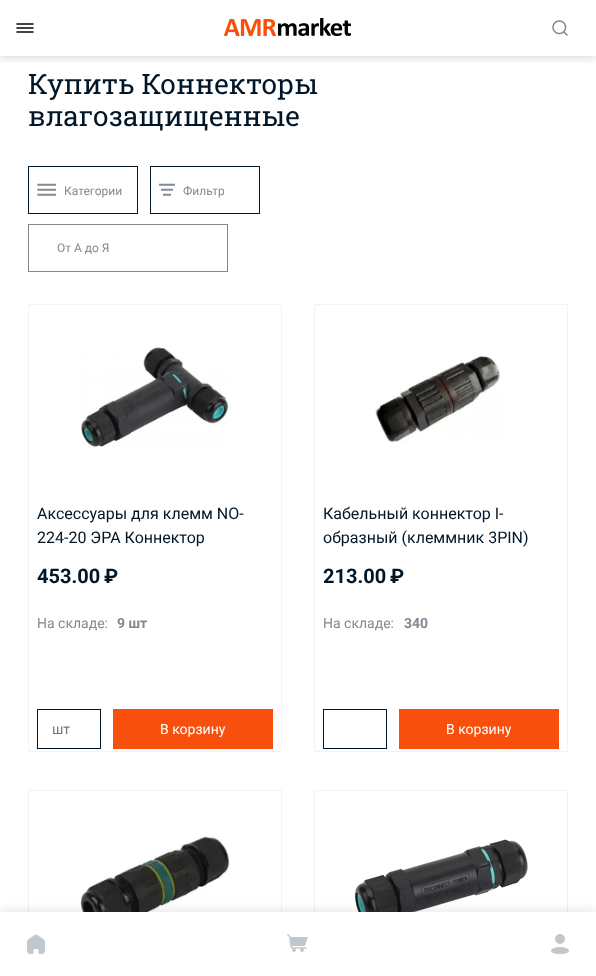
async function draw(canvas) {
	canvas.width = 596;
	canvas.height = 976;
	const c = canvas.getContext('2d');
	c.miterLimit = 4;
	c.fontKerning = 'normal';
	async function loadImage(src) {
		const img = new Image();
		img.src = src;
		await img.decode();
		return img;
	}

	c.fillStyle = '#fff';
	c.fillRect(0, 0, 596, 976);
	c.save();
	c.beginPath();
	c.rect(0, 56, 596, 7);
	c.clip();
	c.fillStyle = '#0000001f';
	c.filter = 'blur(4px)';
	c.beginPath();
	c.rect(0, 3, 596, 56);
	c.fill();
	c.filter = 'none';
	c.restore();
	c.drawImage(await loadImage('img1.png'), 16, 23, 18, 10);
	c.drawImage(await loadImage('img2.png'), 224, 18, 127, 18);
	c.drawImage(await loadImage('img3.png'), 552, 20, 16, 16);
	c.font = '28px Roboto Slab';
	c.fillStyle = '#011627';
	c.fillText('Купить Коннекторы', 28, 94);
	c.fillText('влагозащищенные', 28, 126);
	c.strokeStyle = '#011627';
	c.strokeRect(28.5, 166.5, 109, 47);
	c.drawImage(await loadImage('img4.png'), 37, 183, 19, 13);
	c.font = '12px Roboto';
	c.fillStyle = '#808a93';
	c.fillText('Категории', 64, 195);
	c.strokeRect(150.5, 166.5, 109, 47);
	c.drawImage(await loadImage('img5.png'), 159, 183, 16, 13);
	c.fillText('Фильтр', 183, 195);
	c.strokeStyle = '#808a93';
	c.strokeRect(28.5, 224.5, 199, 47);
	c.fillText('От А до Я', 57, 252);
	c.strokeStyle = '#f2f3f4';
	c.strokeRect(28.5, 304.5, 253, 447);
	c.drawImage(await loadImage('img6.png'), 80, 347, 148, 100);
	c.font = '16px Roboto';
	c.fillStyle = '#011627';
	c.fillText('Аксессуары для клемм NO-', 37, 519);
	c.fillText('224-20 ЭРА Коннектор', 37, 543);
	c.font = 'bold 20px Roboto';
	c.fillText('453.00', 37, 583);
	c.fillText('₽', 104, 583);
	c.font = '14px Roboto';
	c.fillStyle = '#808a93';
	c.fillText('На складе:', 37, 628);
	c.font = 'bold 14px Roboto';
	c.fillText('9 шт', 117, 628);
	c.strokeStyle = '#011627';
	c.strokeRect(37.5, 709.5, 63, 39);
	c.font = '14px Roboto';
	c.fillStyle = '#757575';
	c.fillText('шт', 52, 734);
	c.fillStyle = '#f94f0d';
	c.fillRect(113, 709, 160, 40);
	c.fillStyle = '#fff';
	c.fillText('В корзину', 160, 734);
	c.strokeStyle = '#f2f3f4';
	c.strokeRect(314.5, 304.5, 253, 447);
	c.drawImage(await loadImage('img7.png'), 375, 355, 127, 87);
	c.font = '16px Roboto';
	c.fillStyle = '#011627';
	c.fillText('Кабельный коннектор I-', 323, 519);
	c.fillText('образный (клеммник 3PIN)', 323, 543);
	c.font = 'bold 20px Roboto';
	c.fillText('213.00', 323, 583);
	c.fillText('₽', 390, 583);
	c.font = '14px Roboto';
	c.fillStyle = '#808a93';
	c.fillText('На складе:', 323, 628);
	c.font = 'bold 14px Roboto';
	c.fillText('340', 404, 628);
	c.strokeStyle = '#011627';
	c.strokeRect(323.5, 709.5, 63, 39);
	c.fillStyle = '#f94f0d';
	c.fillRect(399, 709, 160, 40);
	c.font = '14px Roboto';
	c.fillStyle = '#fff';
	c.fillText('В корзину', 446, 734);
	c.strokeStyle = '#f2f3f4';
	c.strokeRect(28.5, 790.5, 253, 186);
	c.drawImage(await loadImage('img8.png'), 78, 834, 152, 78);
	c.strokeRect(314.5, 790.5, 253, 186);
	c.drawImage(await loadImage('img9.png'), 354, 839, 174, 73);
	c.fillStyle = '#00000014';
	c.filter = 'blur(4px)';
	c.beginPath();
	c.rect(0, 909, 596, 64);
	c.fill();
	c.filter = 'none';
	c.fillStyle = '#fff';
	c.fillRect(0, 912, 596, 64);
	c.drawImage(await loadImage('img10.png'), 27, 934, 18, 20);
	c.drawImage(await loadImage('img11.png'), 287, 934, 21, 18);
	c.drawImage(await loadImage('img12.png'), 551, 934, 18, 20);
}

draw(document.querySelector('canvas'));
